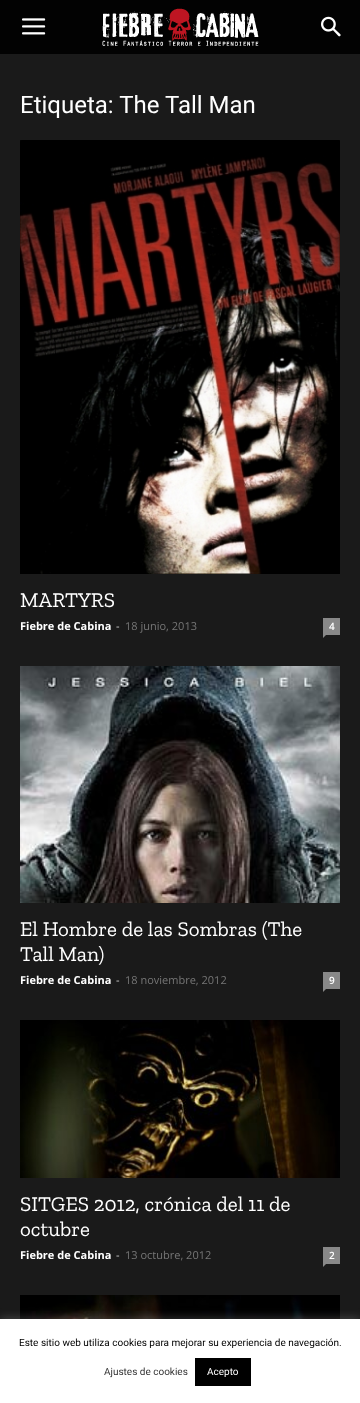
async function draw(canvas) {
	canvas.width = 360;
	canvas.height = 1403;
	const c = canvas.getContext('2d');
	c.miterLimit = 4;
	c.fontKerning = 'normal';
	async function loadImage(src) {
		const img = new Image();
		img.src = src;
		await img.decode();
		return img;
	}

	c.fillStyle = '#1a1a1a';
	c.fillRect(0, 0, 360, 1403);
	c.fillStyle = '#020202';
	c.fillRect(0, 0, 360, 54);
	c.drawImage(await loadImage('img1.png'), 22, 18, 24, 17);
	c.drawImage(await loadImage('img2.png'), 102, 8, 157, 38);
	c.drawImage(await loadImage('img3.png'), 321, 16, 20, 21);
	c.font = '24px Roboto';
	c.fillStyle = '#fff';
	c.fillText('Etiqueta: The Tall Man', 20, 113);
	c.drawImage(await loadImage('img4.png'), 20, 140, 320, 434);
	c.font = '21px Zilla Slab';
	c.fillText('MARTYRS', 20, 607);
	c.font = 'bold 11px Open Sans';
	c.fillText('Fiebre de Cabina', 20, 630);
	c.font = '11px Open Sans';
	c.fillStyle = '#ccc';
	c.fillText('-', 116, 630);
	c.fillStyle = '#767676';
	c.fillText('18 junio, 2013', 125, 630);
	c.fillStyle = '#888';
	c.fillRect(323, 618, 17, 17);
	c.font = '600 10px Open Sans';
	c.fillStyle = '#fff';
	c.fillText('4', 329, 630);
	c.fillStyle = '#888';
	c.beginPath();
	c.moveTo(323, 635);
	c.lineTo(326, 635);
	c.lineTo(323, 638);
	c.closePath();
	c.fill();
	c.drawImage(await loadImage('img5.png'), 20, 666, 320, 237);
	c.font = '21px Zilla Slab';
	c.fillStyle = '#fff';
	c.fillText('El Hombre de las Sombras (The', 20, 936);
	c.fillText('Tall Man)', 20, 961);
	c.font = 'bold 11px Open Sans';
	c.fillText('Fiebre de Cabina', 20, 984);
	c.font = '11px Open Sans';
	c.fillStyle = '#ccc';
	c.fillText('-', 116, 984);
	c.fillStyle = '#767676';
	c.fillText('18 noviembre, 2012', 125, 984);
	c.fillStyle = '#888';
	c.fillRect(323, 972, 17, 17);
	c.font = '600 10px Open Sans';
	c.fillStyle = '#fff';
	c.fillText('9', 329, 984);
	c.fillStyle = '#888';
	c.beginPath();
	c.moveTo(323, 989);
	c.lineTo(326, 989);
	c.lineTo(323, 992);
	c.closePath();
	c.fill();
	c.drawImage(await loadImage('img6.png'), 20, 1020, 320, 158);
	c.font = '21px Zilla Slab';
	c.fillStyle = '#fff';
	c.fillText('SITGES 2012, crónica del 11 de', 20, 1211);
	c.fillText('octubre', 20, 1236);
	c.font = 'bold 11px Open Sans';
	c.fillText('Fiebre de Cabina', 20, 1259);
	c.font = '11px Open Sans';
	c.fillStyle = '#ccc';
	c.fillText('-', 116, 1259);
	c.fillStyle = '#767676';
	c.fillText('13 octubre, 2012', 125, 1259);
	c.fillStyle = '#888';
	c.fillRect(323, 1247, 17, 17);
	c.font = '600 10px Open Sans';
	c.fillStyle = '#fff';
	c.fillText('2', 329, 1259);
	c.fillStyle = '#888';
	c.beginPath();
	c.moveTo(323, 1264);
	c.lineTo(326, 1264);
	c.lineTo(323, 1267);
	c.closePath();
	c.fill();
	c.drawImage(await loadImage('img7.png'), 20, 1295, 320, 24);
	c.fillStyle = '#acabab4d';
	c.filter = 'blur(5px)';
	c.beginPath();
	c.rect(0, 1318, 360, 84);
	c.fill();
	c.filter = 'none';
	c.fillStyle = '#fff';
	c.fillRect(0, 1319, 360, 84);
	c.font = '10px Roboto';
	c.fillStyle = '#000';
	c.fillText('Este sitio web utiliza cookies para mejorar su experiencia de navegación.', 19, 1346);
	c.fillStyle = '#333';
	c.fillText('Ajustes de cookies', 104, 1375);
	c.fillStyle = '#000';
	c.fillRect(195, 1358, 56, 28);
	c.fillStyle = '#fff';
	c.fillText('Acepto', 207, 1375);
}

draw(document.querySelector('canvas'));
